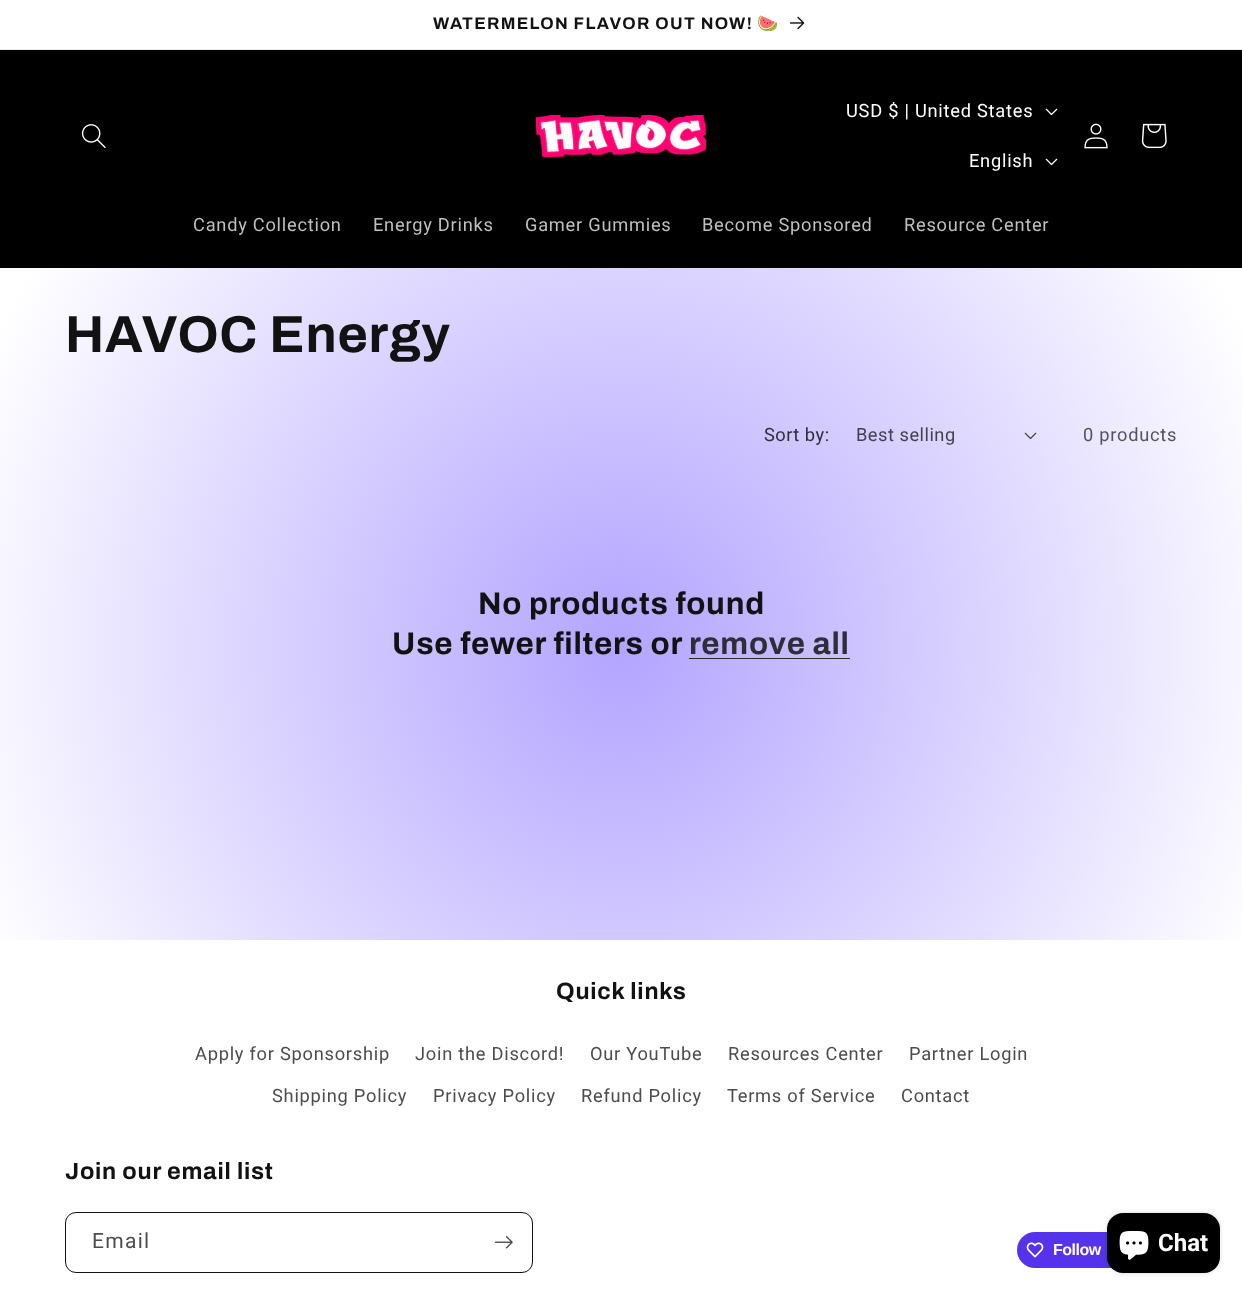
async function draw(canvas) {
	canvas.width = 1242;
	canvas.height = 1294;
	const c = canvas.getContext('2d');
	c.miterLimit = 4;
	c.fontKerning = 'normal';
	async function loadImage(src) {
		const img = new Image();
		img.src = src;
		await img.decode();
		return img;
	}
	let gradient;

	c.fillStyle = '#fff';
	c.fillRect(0, 0, 1242, 1294);
	gradient = c.createRadialGradient(621, 620.84, 0, 621, 620.84, 878);
	gradient.addColorStop(0, '#b3a4ff');
	gradient.addColorStop(0.79, '#fff');
	gradient.addColorStop(0.97, '#fff');
	c.fillStyle = gradient;
	c.beginPath();
	c.rect(0, 268, 1242, 672);
	c.save();
	c.clip();
	c.scale(1, 915 / 878);
	c.fillRect(0, 0, 1242, 1242);
	c.restore();
	gradient = c.createRadialGradient(621, 620.84, 0, 621, 620.84, 878);
	gradient.addColorStop(0, '#2a2836');
	gradient.addColorStop(0.79, '#363636');
	gradient.addColorStop(0.97, '#363636');
	c.fillStyle = gradient;
	c.beginPath();
	c.rect(689, 658, 161, 1);
	c.save();
	c.clip();
	c.scale(1, 915 / 878);
	c.fillRect(0, 0, 1242, 1242);
	c.restore();
	c.fillStyle = '#ececec';
	c.fillRect(0, 49, 1242, 1);
	c.letterSpacing = '1.3px';
	c.font = 'bold 16.9px Archivo';
	c.fillStyle = '#121212';
	c.fillText('WATERMELON FLAVOR OUT NOW!', 433, 29);
	c.font = 'bold 16.9px Noto Color Emoji';
	c.fillText('🍉', 757, 29);
	c.drawImage(await loadImage('img1.png'), 790, 16, 15, 14);
	c.fillStyle = '#000';
	c.fillRect(0, 50, 1242, 218);
	c.drawImage(await loadImage('img2.png'), 81, 124, 25, 25);
	c.drawImage(await loadImage('img3.png'), 536, 115, 170, 42);
	c.letterSpacing = '0.75px';
	c.font = '18.25px Roboto';
	c.fillStyle = '#fff';
	c.fillText('USD $ | United States', 846, 117);
	c.drawImage(await loadImage('img4.png'), 1045, 108, 13, 8);
	c.fillText('English', 969, 167);
	c.drawImage(await loadImage('img4.png'), 1045, 158, 13, 8);
	c.drawImage(await loadImage('img5.png'), 1084, 123, 24, 26);
	c.drawImage(await loadImage('img6.png'), 1141, 123, 26, 26);
	c.fillStyle = '#bfbfbf';
	for (const [text, x, y] of [
		['Candy Collection', 193, 231],
		['Energy Drinks', 373, 231],
		['Gamer Gummies', 525, 231],
		['Become Sponsored', 702, 231],
		['Resource Center', 904, 231],
	]) {
		c.fillText(text, x, y);
	}
	c.font = 'bold 52px Archivo';
	c.fillStyle = '#121212';
	c.fillText('HAVOC Energy', 65, 352);
	c.letterSpacing = '0.5px';
	c.font = '18.25px Roboto';
	c.fillStyle = '#2f2d36';
	c.fillText('Sort by:', 764, 441);
	c.fillStyle = '#44424d';
	c.fillText('Best selling', 856, 441);
	c.drawImage(await loadImage('img7.png'), 1024, 432, 13, 8);
	c.letterSpacing = '0.75px';
	c.fillStyle = '#545359';
	c.fillText('0 products', 1083, 441);
	c.font = 'bold 31.25px Archivo';
	c.fillStyle = '#121212';
	c.fillText('No products found', 478, 614);
	c.fillText('Use fewer filters or', 392, 654);
	c.fillStyle = '#2f2d36';
	c.fillText('remove all', 689, 654);
	c.font = 'bold 23.5px Archivo';
	c.fillStyle = '#121212';
	c.fillText('Quick links', 556, 999);
	c.font = '18.25px Roboto';
	c.fillStyle = '#4d4d4d';
	for (const [text, x, y] of [
		['Apply for Sponsorship', 195, 1060],
		['Join the Discord!', 415, 1060],
		['Our YouTube', 590, 1060],
		['Resources Center', 728, 1060],
		['Partner Login', 909, 1060],
		['Shipping Policy', 272, 1102],
		['Privacy Policy', 433, 1102],
		['Refund Policy', 581, 1102],
		['Terms of Service', 727, 1102],
		['Contact', 901, 1102],
	]) {
		c.fillText(text, x, y);
	}
	c.font = 'bold 23.5px Archivo';
	c.fillStyle = '#121212';
	c.fillText('Join our email list', 65, 1179);
	c.beginPath();
	c.roundRect(65.5, 1212.5, 467, 60, 10.5);
	c.strokeStyle = '#121212';
	c.stroke();
	c.letterSpacing = '1.3px';
	c.font = '21px Roboto';
	c.fillStyle = '#4d4d4d';
	c.fillText('Email', 92, 1248);
	c.drawImage(await loadImage('img8.png'), 494, 1236, 19, 13);
	c.fillStyle = '#5433eb';
	c.beginPath();
	c.roundRect(1017, 1232, 160, 36, 18);
	c.fill();
	c.drawImage(await loadImage('img9.png'), 1026, 1242, 18, 16);
	c.letterSpacing = '-0.5px';
	c.font = 'bold 16px Liberation Sans';
	c.fillStyle = '#fff';
	c.fillText('Follow', 1053, 1255);
	c.fillStyle = '#00000026';
	c.filter = 'blur(2.5px)';
	c.beginPath();
	c.roundRect(1107, 1213, 113, 60, 16);
	c.fill();
	c.filter = 'none';
	c.fillStyle = '#000';
	c.beginPath();
	c.roundRect(1107, 1213, 113, 60, 16);
	c.fill();
	c.drawImage(await loadImage('img10.png'), 1119, 1231, 30, 29);
	c.letterSpacing = '0px';
	c.font = 'bold 24px Roboto';
	c.fillStyle = '#fff';
	c.fillText('Chat', 1158, 1251);
}

draw(document.querySelector('canvas'));
